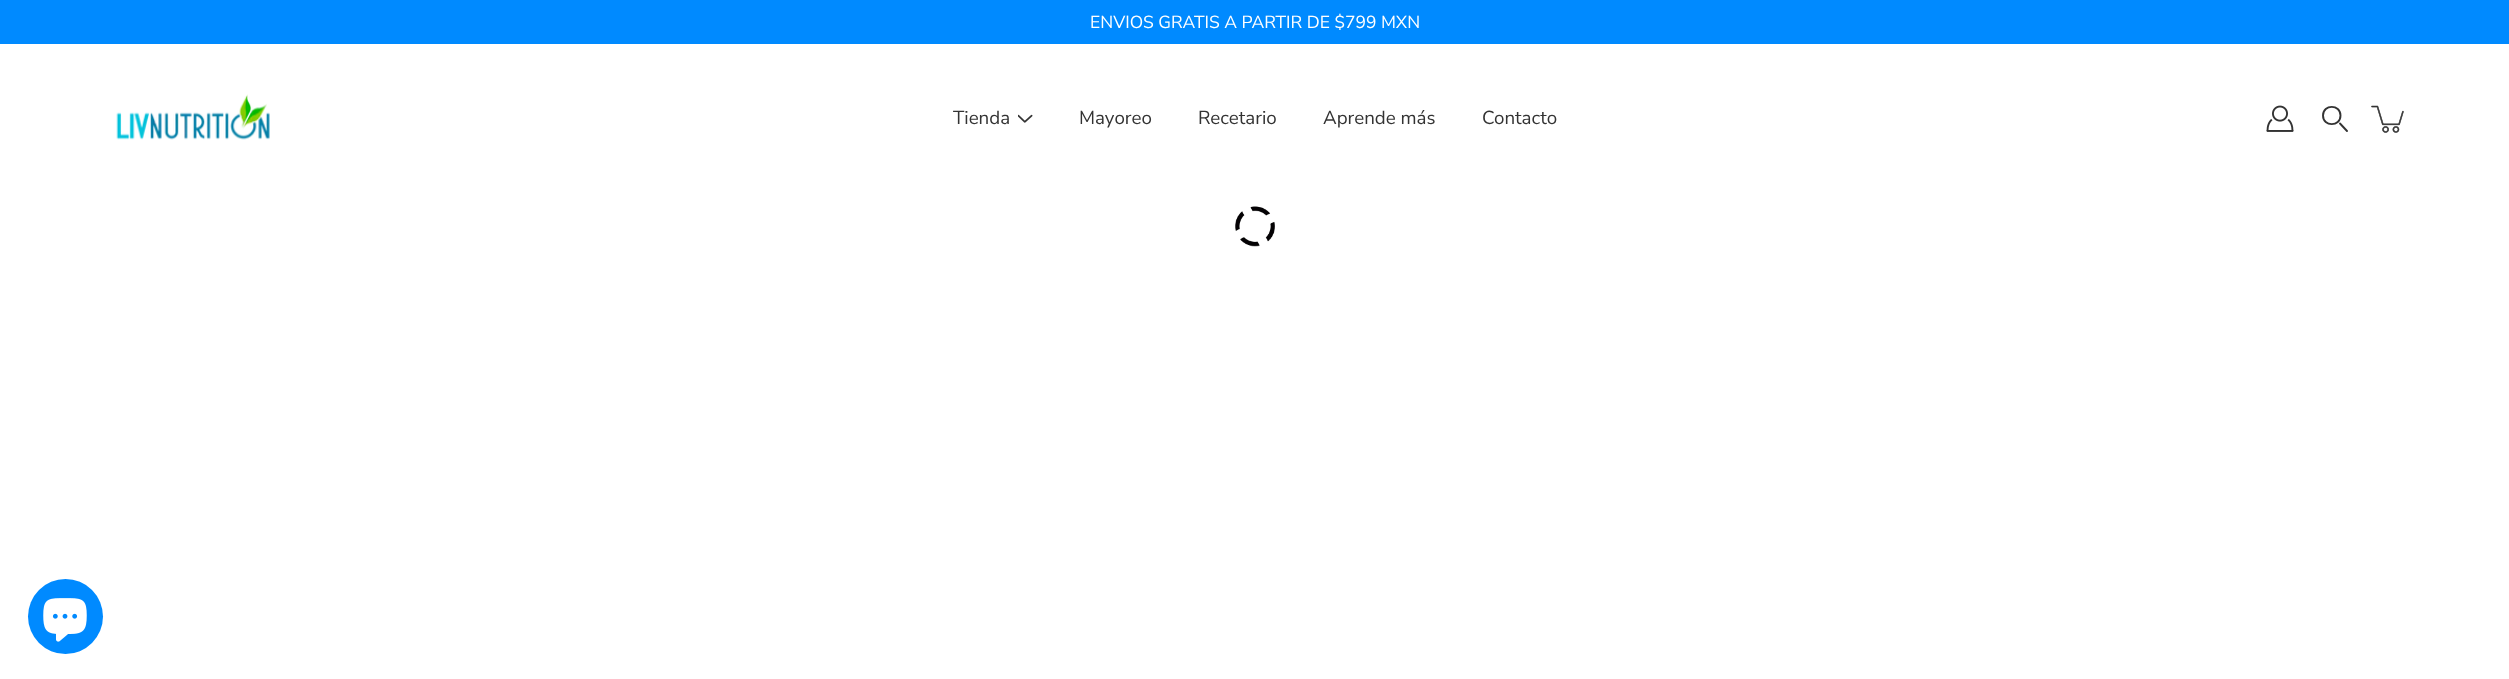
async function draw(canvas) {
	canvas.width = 2509;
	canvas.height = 679;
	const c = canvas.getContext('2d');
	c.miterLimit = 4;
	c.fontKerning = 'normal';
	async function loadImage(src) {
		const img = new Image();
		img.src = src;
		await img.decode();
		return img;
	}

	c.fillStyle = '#fff';
	c.fillRect(0, 0, 2509, 679);
	c.fillStyle = '#008aff';
	c.fillRect(0, 0, 2509, 44);
	c.font = '17.5px Nunito Sans';
	c.fillStyle = '#fff';
	c.fillText('ENVIOS GRATIS A PARTIR DE $799 MXN', 1090, 28);
	c.drawImage(await loadImage('img1.png'), 116, 94, 154, 46);
	c.font = '18.75px Nunito Sans';
	c.fillStyle = '#333';
	c.fillText('Tienda', 953, 124);
	c.drawImage(await loadImage('img2.png'), 1018, 114, 15, 9);
	for (const [text, x, y] of [
		['Mayoreo', 1079, 124],
		['Recetario', 1198, 124],
		['Aprende más', 1323, 124],
		['Contacto', 1482, 124],
	]) {
		c.fillText(text, x, y);
	}
	c.drawImage(await loadImage('img3.png'), 2266, 105, 28, 27);
	c.beginPath();
	c.moveTo(2340.5, 115.5);
	c.bezierCurveTo(2340.5, 127, 2323, 127, 2323, 115.5);
	c.bezierCurveTo(2323, 104, 2340.5, 104, 2340.5, 115.5);
	c.closePath();
	c.strokeStyle = '#333';
	c.lineWidth = 1.9;
	c.stroke();
	c.beginPath();
	c.moveTo(2340, 123.5);
	c.lineTo(2347, 131);
	c.lineCap = 'round';
	c.stroke();
	c.drawImage(await loadImage('img4.png'), 2371, 105, 33, 28);
	c.drawImage(await loadImage('img5.png'), 1235, 206, 40, 41);
	c.fillStyle = '#008aff';
	c.beginPath();
	c.arc(65.5, 616.5, 37.5, 0, 2 * Math.PI);
	c.fill();
	c.drawImage(await loadImage('img6.png'), 43, 598, 44, 44);
}

draw(document.querySelector('canvas'));
